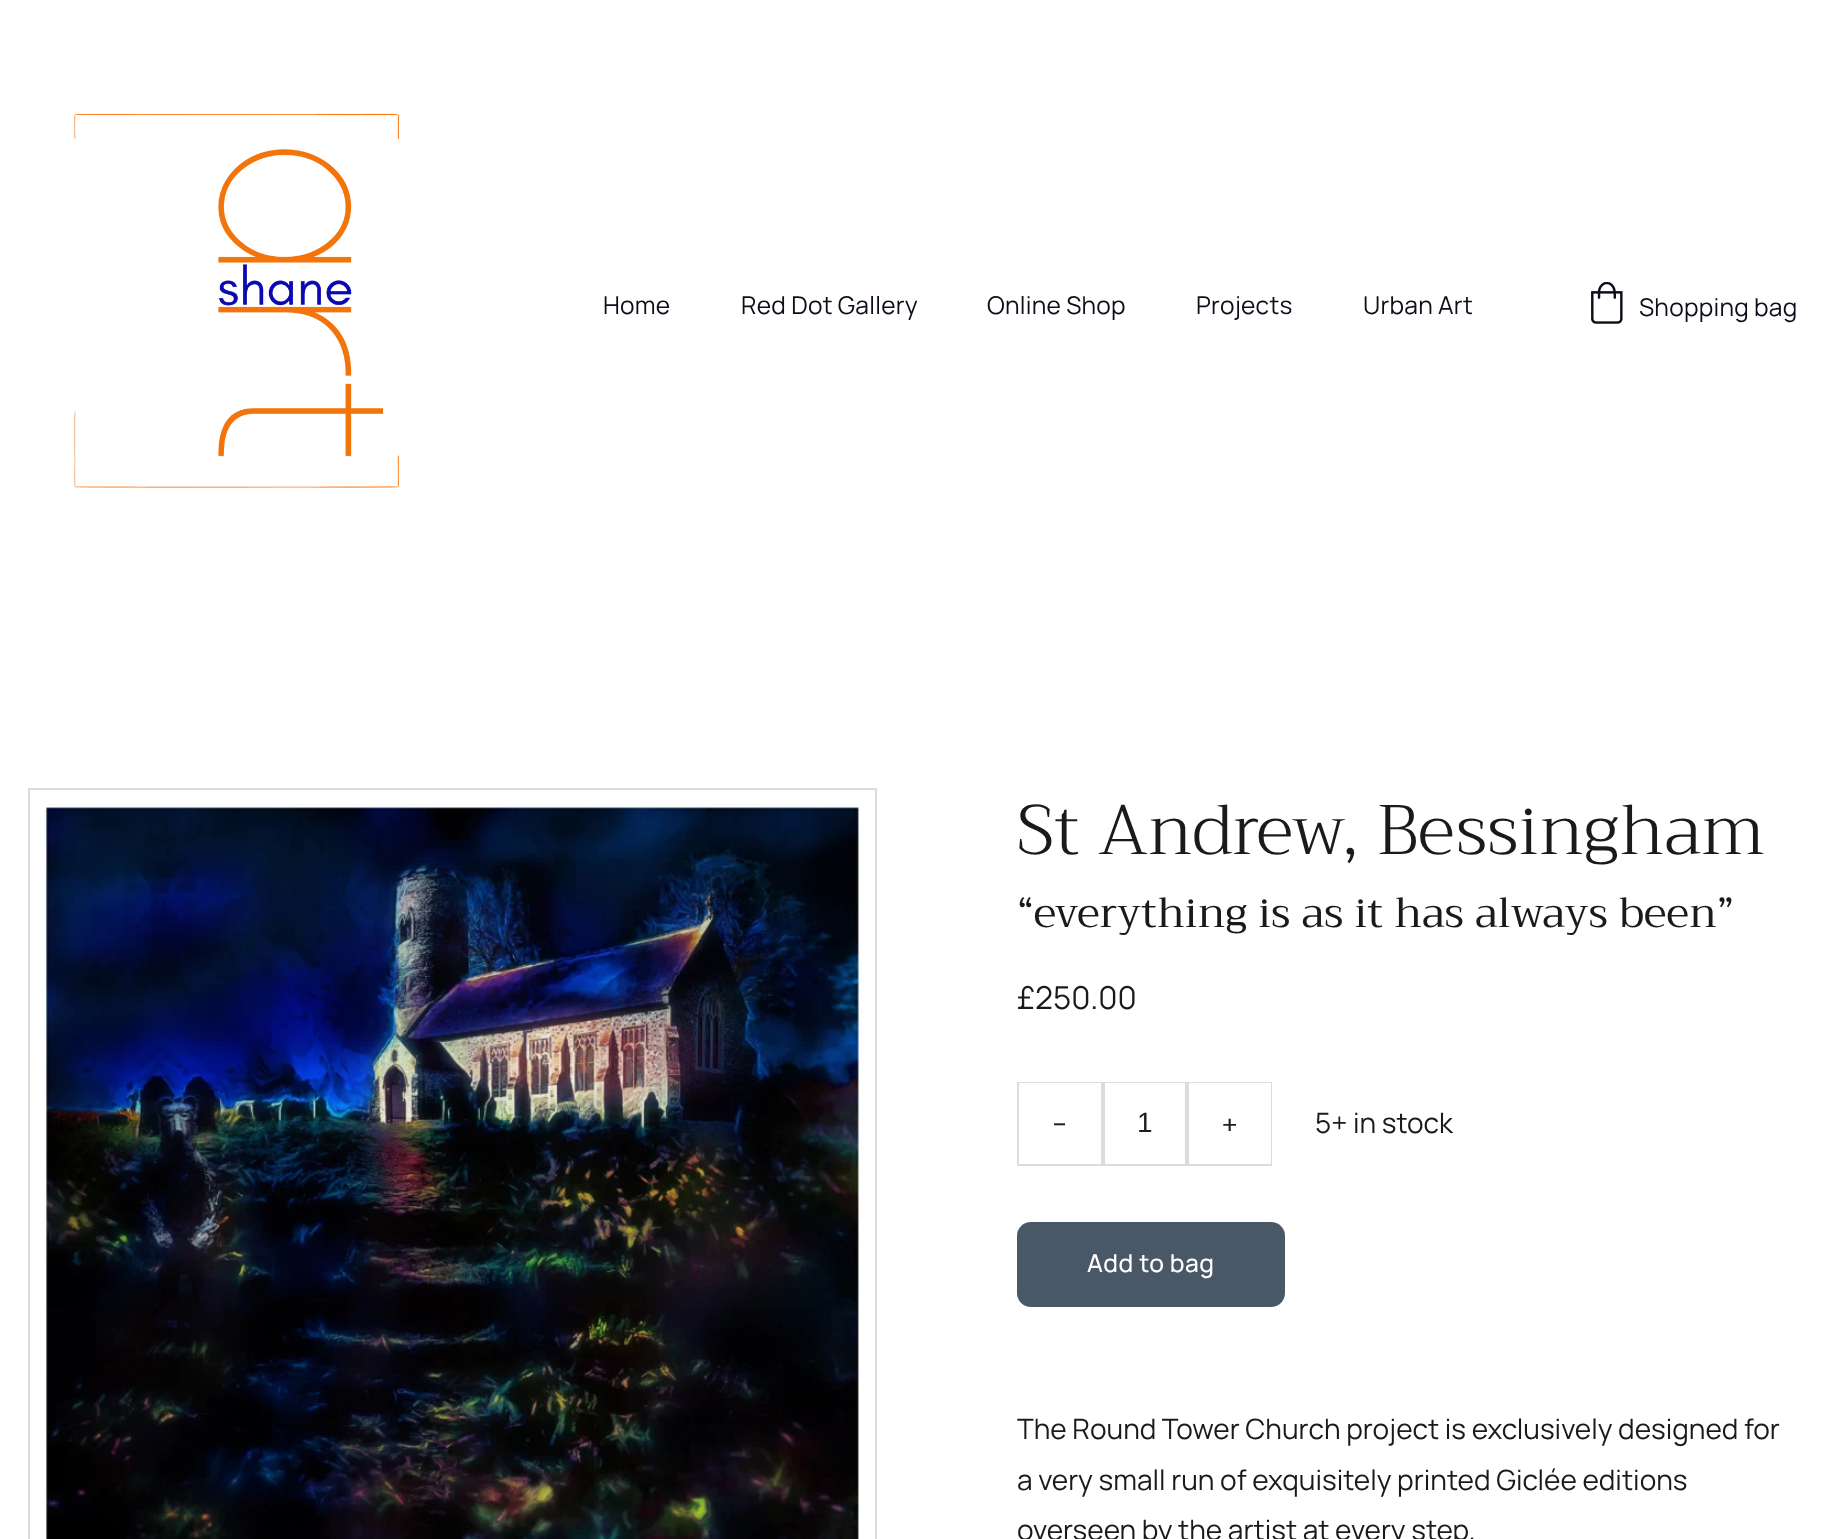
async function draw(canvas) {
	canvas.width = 1826;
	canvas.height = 1539;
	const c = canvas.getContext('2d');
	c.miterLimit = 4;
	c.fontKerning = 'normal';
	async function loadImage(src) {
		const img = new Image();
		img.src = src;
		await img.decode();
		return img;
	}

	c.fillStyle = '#fff';
	c.fillRect(0, 0, 1826, 1539);
	c.drawImage(await loadImage('img1.png'), 74, 113, 326, 375);
	c.letterSpacing = '0.25px';
	c.font = '200 24.5px Manrope';
	c.fillStyle = '#0d0d1a';
	for (const [text, x, y] of [
		['Home', 603, 314],
		['Red Dot Gallery', 741, 314],
		['Online Shop', 987, 314],
		['Projects', 1196, 314],
		['Urban Art', 1363, 314],
	]) {
		c.fillText(text, x, y);
	}
	c.drawImage(await loadImage('img2.png'), 1591, 282, 32, 42);
	c.fillText('Shopping bag', 1639, 316);
	c.strokeStyle = '#dadce0';
	c.lineWidth = 2;
	c.strokeRect(29, 789, 847, 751);
	c.drawImage(await loadImage('img3.png'), 43, 804, 823, 735);
	c.letterSpacing = '0px';
	c.font = '300 70px Trirong';
	c.fillStyle = '#1a1a1a';
	c.fillText('St Andrew, Bessingham', 1017, 854);
	c.font = '42px Trirong';
	c.fillText('“everything is as it has always been”', 1017, 927);
	c.font = '200 31.5px Manrope';
	c.fillText('£250.00', 1017, 1009);
	c.strokeRect(1018, 1083, 253, 82);
	c.fillStyle = '#fff';
	c.fillRect(1019, 1083, 82, 1);
	c.fillStyle = '#dadce0';
	c.fillRect(1101, 1083, 4, 81);
	c.font = '28px DM Sans';
	c.fillStyle = '#1d1e20';
	c.fillText('-', 1052, 1133);
	c.fillStyle = '#fff';
	c.fillRect(1105, 1083, 80, 1);
	c.fillStyle = '#dadce0';
	c.fillRect(1185, 1083, 4, 81);
	c.font = '28px Liberation Sans';
	c.fillStyle = '#1d1e20';
	c.fillText('1', 1137, 1132);
	c.fillStyle = '#fff';
	c.fillRect(1189, 1083, 82, 81);
	c.font = '28px DM Sans';
	c.fillStyle = '#1d1e20';
	c.fillText('+', 1222, 1133);
	c.font = '200 28px Manrope';
	c.fillStyle = '#1a1a1a';
	c.fillText('5+ in stock', 1315, 1133);
	c.fillStyle = '#495867';
	c.beginPath();
	c.roundRect(1017, 1222, 268, 85, 14);
	c.fill();
	c.letterSpacing = '0.5px';
	c.font = '200 24.5px "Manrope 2"';
	c.fillStyle = '#fff';
	c.fillText('Add to bag', 1087, 1272);
	c.letterSpacing = '0px';
	c.font = '200 28px Manrope';
	c.fillStyle = '#1a1a1a';
	for (const [text, x, y] of [
		['The Round Tower Church project is exclusively designed for', 1017, 1439],
		['a very small run of exquisitely printed Giclée editions', 1017, 1490],
		['overseen by the artist at every step.', 1017, 1540],
	]) {
		c.fillText(text, x, y);
	}
}

draw(document.querySelector('canvas'));
